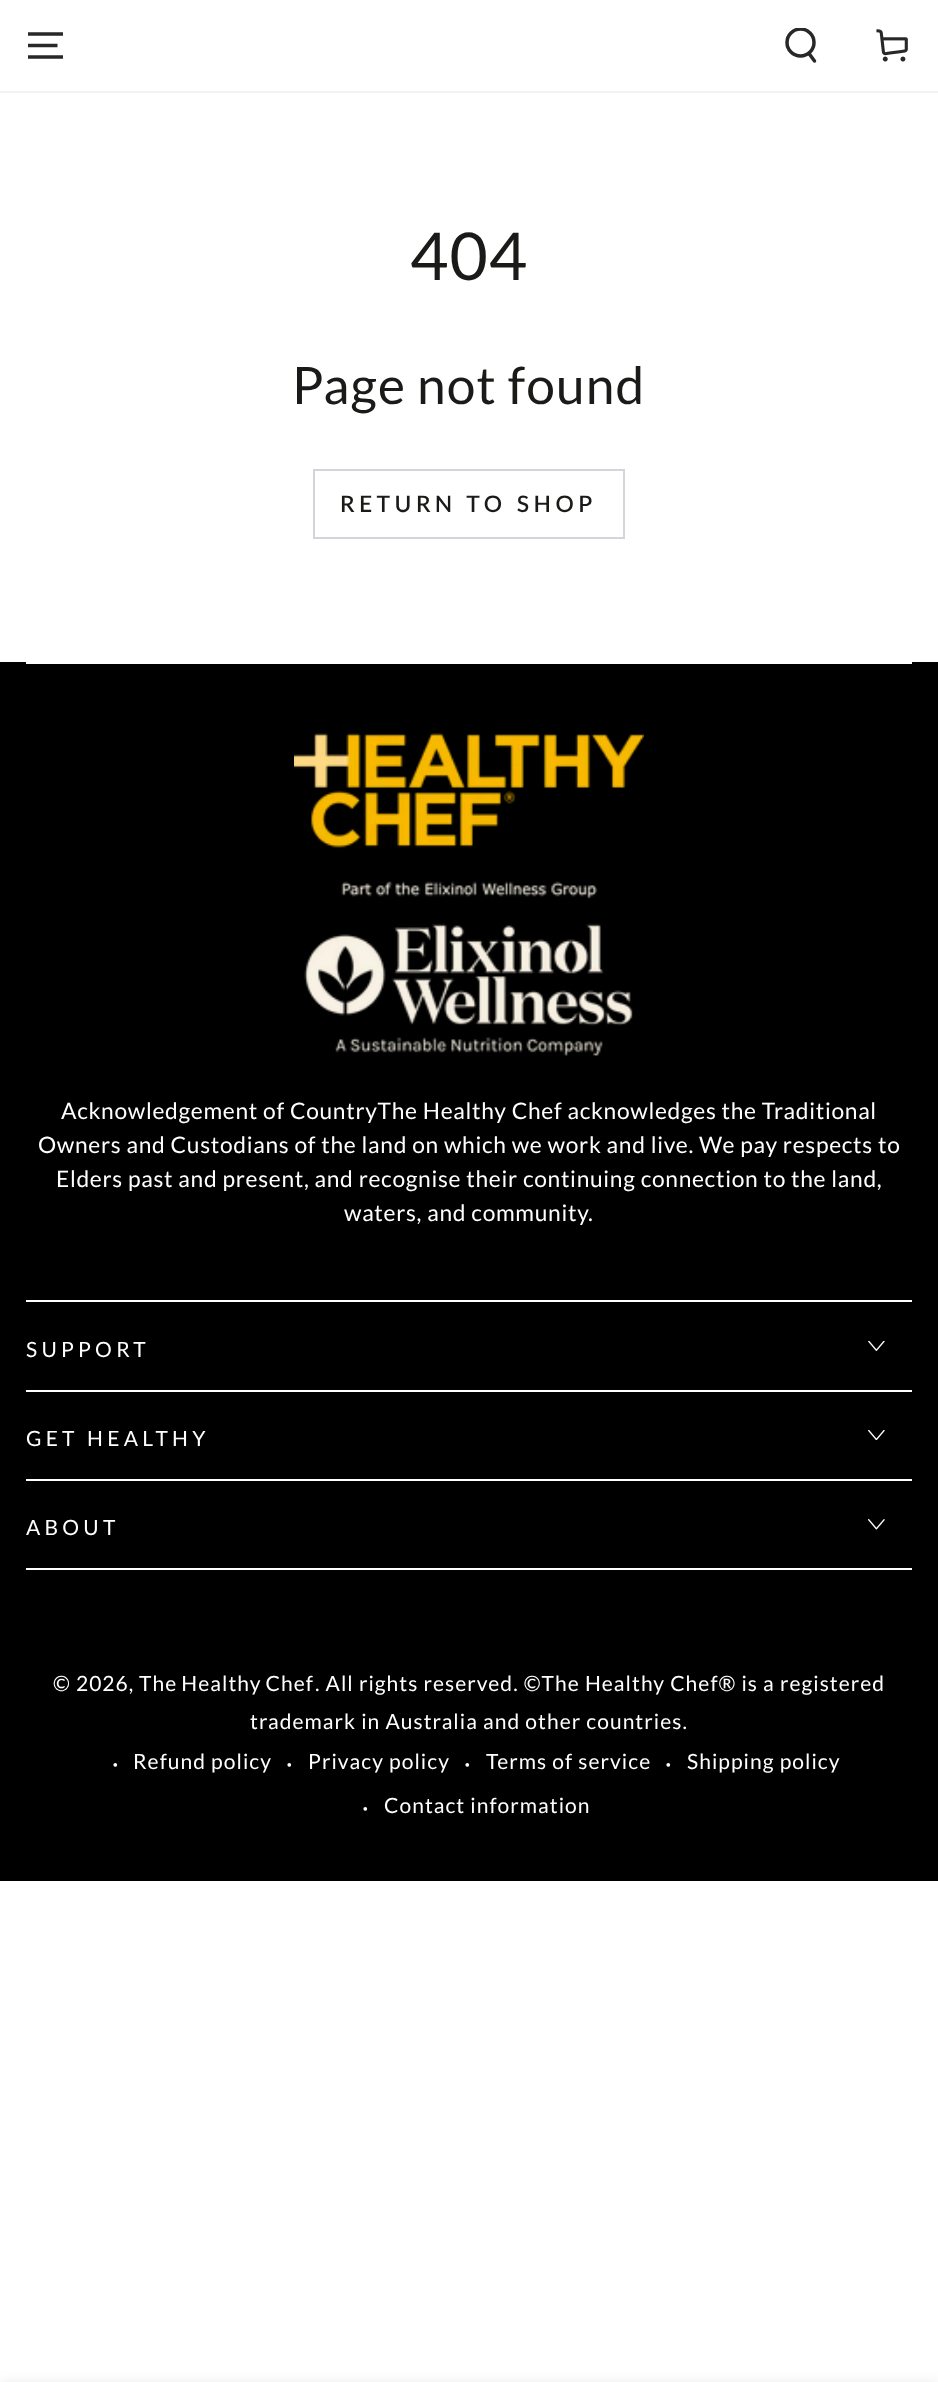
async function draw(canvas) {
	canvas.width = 938;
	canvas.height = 2382;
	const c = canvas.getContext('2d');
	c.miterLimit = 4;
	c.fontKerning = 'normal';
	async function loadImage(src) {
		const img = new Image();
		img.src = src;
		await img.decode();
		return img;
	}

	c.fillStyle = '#fff';
	c.fillRect(0, 0, 938, 2382);
	c.fillStyle = '#f2f2f4';
	c.fillRect(0, 91, 938, 2);
	c.beginPath();
	c.moveTo(28, 57);
	c.lineTo(63, 57);
	c.moveTo(28, 45.5);
	c.lineTo(57.5, 45.5);
	c.moveTo(28, 34);
	c.lineTo(63, 34);
	c.strokeStyle = '#282828';
	c.lineWidth = 3.3;
	c.stroke();
	c.save();
	c.beginPath();
	c.rect(784, 28, 35, 35);
	c.clip();
	c.beginPath();
	c.arc(800.5, 42.5, 13.5, 0, 2 * Math.PI);
	c.lineWidth = 3.5;
	c.stroke();
	c.restore();
	c.beginPath();
	c.moveTo(809, 53.5);
	c.lineTo(814.5, 61);
	c.lineWidth = 3.5;
	c.lineCap = 'round';
	c.stroke();
	c.drawImage(await loadImage('img1.png'), 876, 29, 32, 33);
	c.letterSpacing = '1.1px';
	c.font = '66px Lato';
	c.fillStyle = '#1a1b18';
	c.fillText('404', 410, 280);
	c.font = '51.5px Lato';
	c.fillText('Page not found', 292, 404);
	c.strokeStyle = '#d2d5d9';
	c.lineWidth = 2;
	c.strokeRect(314, 470, 310, 68);
	c.letterSpacing = '4.5px';
	c.font = '600 22.75px Lato';
	c.fillText('RETURN TO SHOP', 340, 512);
	for (const [x, y, w, h, color] of [
		[0, 662, 938, 1219, '#000'],
		[26, 662, 886, 2, '#fff'],
		[26, 1300, 886, 2, '#fff'],
	]) {
		c.fillStyle = color;
		c.fillRect(x, y, w, h);
	}
	c.drawImage(await loadImage('img2.png'), 294, 733, 350, 323);
	c.letterSpacing = '0.7px';
	c.font = '22.75px Lato';
	for (const [text, x, y] of [
		['Acknowledgement of CountryThe Healthy Chef acknowledges the Traditional', 61, 1119],
		['Owners and Custodians of the land on which we work and live. We pay respects to', 38, 1153],
		['Elders past and present, and recognise their continuing connection to the land,', 56, 1187],
		['waters, and community.', 344, 1221],
	]) {
		c.fillText(text, x, y);
	}
	c.fillRect(26, 1390, 886, 2);
	c.letterSpacing = '4.25px';
	c.font = '21px Lato';
	c.fillText('SUPPORT', 26, 1357);
	c.drawImage(await loadImage('img3.png'), 868, 1341, 17, 10);
	c.fillRect(26, 1479, 886, 2);
	c.fillText('GET HEALTHY', 26, 1446);
	c.drawImage(await loadImage('img4.png'), 868, 1430, 17, 10);
	c.fillRect(26, 1568, 886, 2);
	c.fillText('ABOUT', 26, 1535);
	c.drawImage(await loadImage('img5.png'), 868, 1519, 17, 11);
	c.letterSpacing = '1.05px';
	c.fillText('© 2026,', 53, 1691);
	c.wordSpacing = '-1px';
	c.fillText('The Healthy Chef', 139, 1691);
	c.wordSpacing = '0px';
	c.fillText('. All rights reserved. ©The Healthy Chef® is a registered', 315, 1691);
	c.fillText('trademark in Australia and other countries.', 250, 1729);
	c.font = '24px Lato';
	c.fillText('·', 112, 1772);
	c.font = '21px Lato';
	c.fillText('Refund policy', 133, 1769);
	c.font = '24px Lato';
	c.fillText('·', 286, 1772);
	c.font = '21px Lato';
	c.fillText('Privacy policy', 308, 1769);
	c.font = '24px Lato';
	c.fillText('·', 464, 1772);
	c.font = '21px Lato';
	c.fillText('Terms of service', 486, 1769);
	c.font = '24px Lato';
	c.fillText('·', 665, 1772);
	c.font = '21px Lato';
	c.fillText('Shipping policy', 687, 1769);
	c.font = '24px Lato';
	c.fillText('·', 362, 1816);
	c.font = '21px Lato';
	c.fillText('Contact information', 384, 1813);
	c.fillStyle = '#21232626';
	c.filter = 'blur(7px)';
	c.beginPath();
	c.rect(0, 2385, 938, 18);
	c.fill();
	c.filter = 'none';
}

draw(document.querySelector('canvas'));
